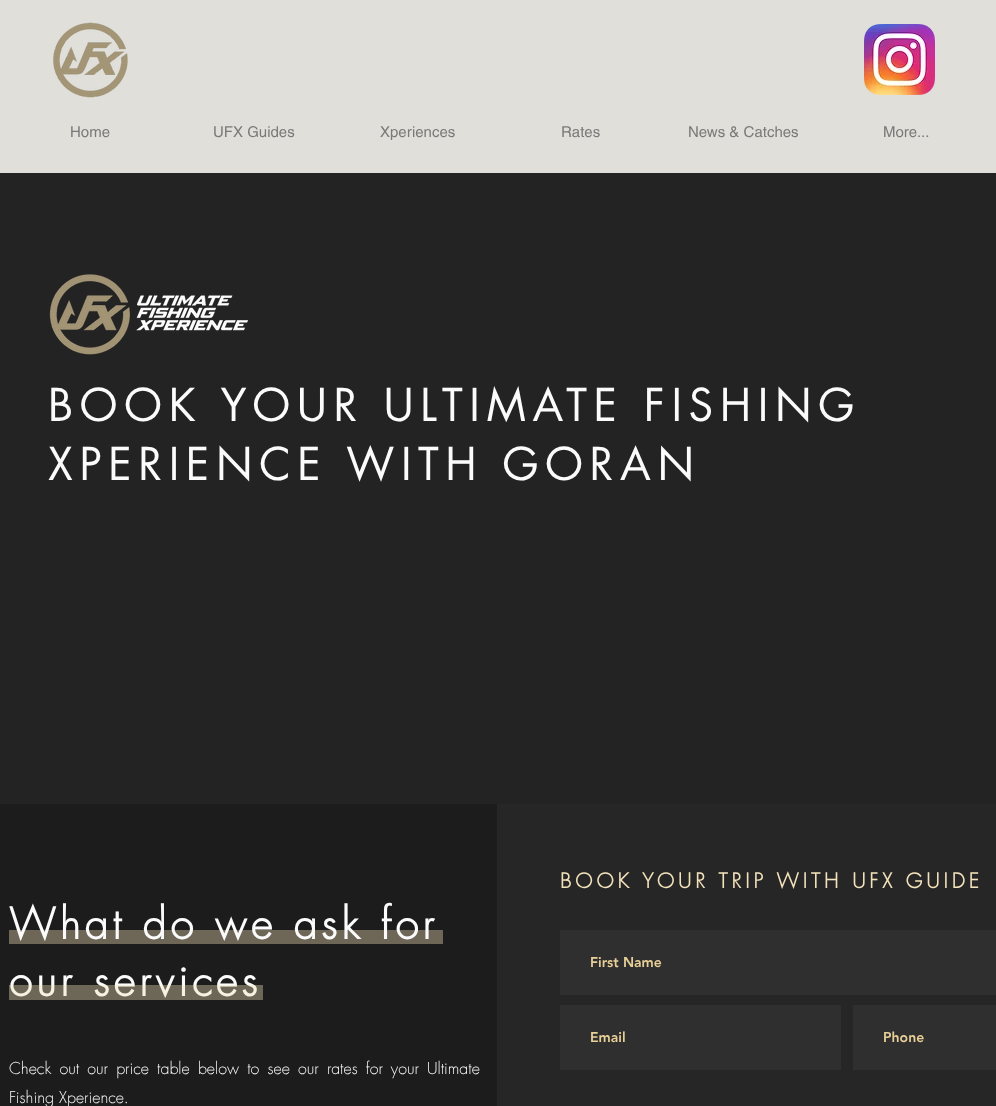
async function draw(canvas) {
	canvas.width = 996;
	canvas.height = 1106;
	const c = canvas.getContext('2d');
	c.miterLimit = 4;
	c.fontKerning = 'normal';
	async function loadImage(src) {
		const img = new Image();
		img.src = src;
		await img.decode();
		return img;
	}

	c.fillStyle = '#242323';
	c.fillRect(0, 0, 996, 1106);
	c.fillStyle = '#e1dfda';
	c.fillRect(0, 0, 996, 173);
	c.drawImage(await loadImage('img1.png'), 53, 22, 75, 76);
	c.drawImage(await loadImage('img2.png'), 864, 24, 71, 71);
	c.font = '15px helvetica';
	c.fillStyle = '#7a7a7a';
	for (const [text, x, y] of [
		['Home', 70, 137],
		['UFX Guides', 213, 137],
		['Xperiences', 380, 137],
		['Rates', 561, 137],
		['News & Catches', 688, 137],
		['More...', 883, 137],
	]) {
		c.fillText(text, x, y);
	}
	c.drawImage(await loadImage('img3.png'), 49, 274, 199, 81);
	c.letterSpacing = '6.6px';
	c.font = '44px futura';
	c.fillStyle = '#fbfbfb';
	c.fillText('BOOK YOUR ULTIMATE FISHING', 48, 421);
	c.fillText('XPERIENCE WITH GORAN', 48, 480);
	c.fillStyle = '#1c1c1c';
	c.fillRect(0, 804, 497, 302);
	c.fillStyle = '#6e6758';
	c.fillRect(9, 930, 434, 14);
	c.letterSpacing = '4.25px';
	c.font = 'bold 42px futura';
	c.fillStyle = '#fbfbfb';
	c.fillText('What do we ask for', 9, 939);
	c.fillText('our services', 9, 996);
	c.fillStyle = '#f3e2bb61';
	c.fillRect(9, 985, 254, 15);
	c.letterSpacing = '0px';
	c.wordSpacing = '3.25px';
	c.font = '300 16px futura';
	c.fillStyle = '#fbfbfb';
	c.fillText('Check out our price table below to see our rates for your Ultimate', 9, 1074);
	c.wordSpacing = '0px';
	c.fillText('Fishing Xperience.', 9, 1103);
	c.fillStyle = '#262626';
	c.fillRect(497, 804, 499, 302);
	c.letterSpacing = '4px';
	c.font = 'bold 20px futura';
	c.fillStyle = '#f3e2bb';
	c.fillText('BOOK YOUR TRIP WITH UFX GUIDE', 560, 888);
	c.fillStyle = '#2f2f2f';
	c.fillRect(560, 930, 436, 65);
	c.letterSpacing = '0px';
	c.font = '900 14px "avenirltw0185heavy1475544"';
	c.fillStyle = '#e7cf97';
	c.fillText('First Name', 590, 967);
	c.fillStyle = '#2f2f2f';
	c.fillRect(560, 1005, 281, 65);
	c.fillStyle = '#e7cf97';
	c.fillText('Email', 590, 1042);
	c.fillStyle = '#2f2f2f';
	c.fillRect(853, 1005, 143, 65);
	c.fillStyle = '#e7cf97';
	c.fillText('Phone', 883, 1042);
}

draw(document.querySelector('canvas'));
